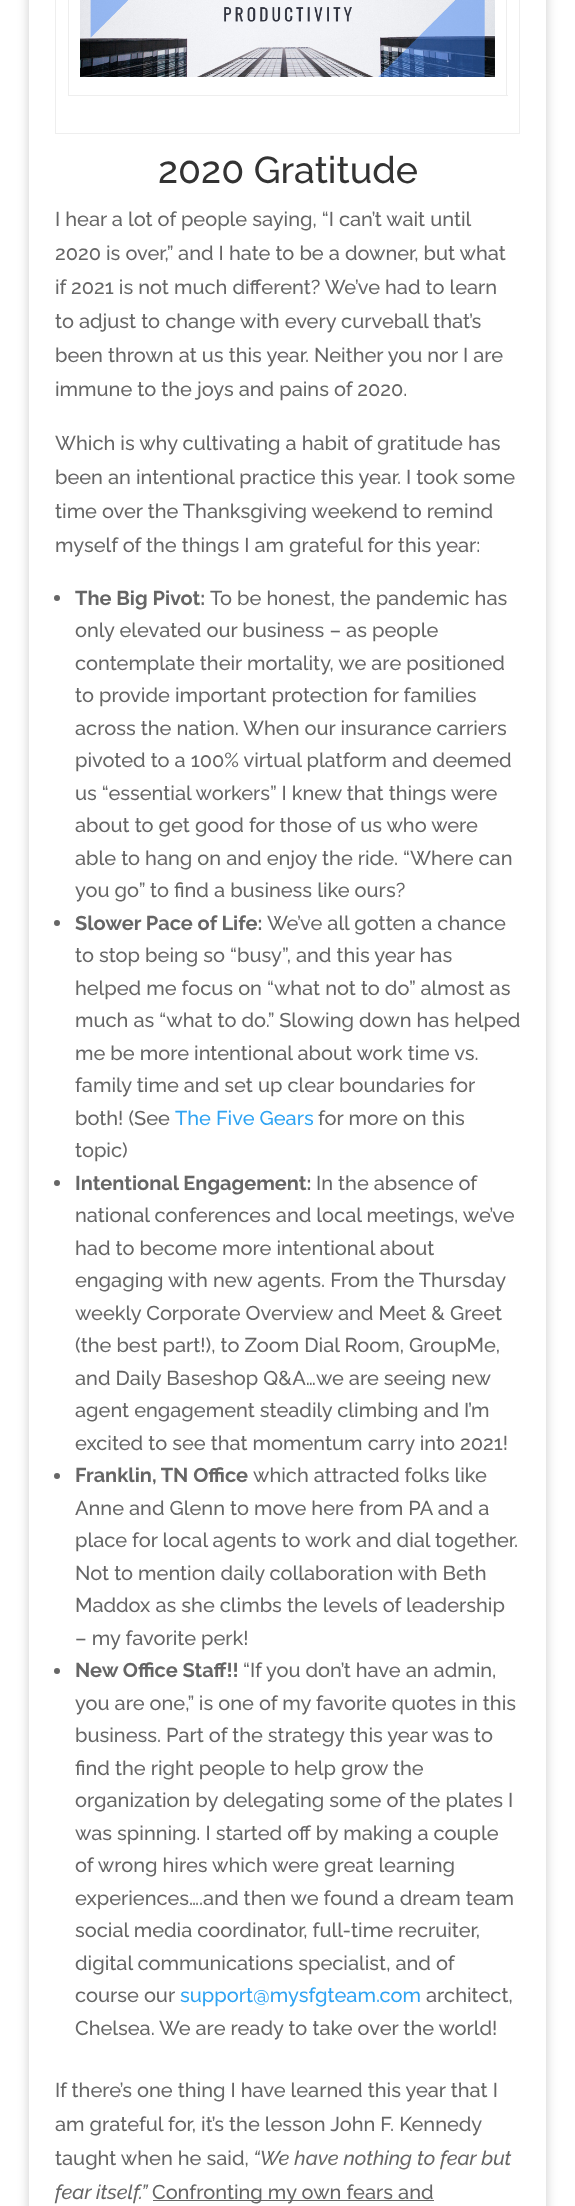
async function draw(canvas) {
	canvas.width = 575;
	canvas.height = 2206;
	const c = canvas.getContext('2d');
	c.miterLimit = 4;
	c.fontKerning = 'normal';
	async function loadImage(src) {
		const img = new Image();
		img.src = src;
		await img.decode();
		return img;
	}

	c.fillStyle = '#fff';
	c.fillRect(0, 0, 575, 2206);
	c.save();
	c.beginPath();
	c.moveTo(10, 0);
	c.lineTo(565, 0);
	c.lineTo(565, 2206);
	c.lineTo(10, 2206);
	c.closePath();
	c.moveTo(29, -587);
	c.lineTo(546, -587);
	c.lineTo(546, 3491);
	c.lineTo(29, 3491);
	c.closePath();
	c.clip('evenodd');
	c.fillStyle = '#00000033';
	c.filter = 'blur(6px)';
	c.beginPath();
	c.rect(29, -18, 517, 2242);
	c.fill();
	c.filter = 'none';
	c.restore();
	for (const [x, y, w, h, color] of [
		[519, 0, 1, 134, '#eee'],
		[55, 133, 465, 1, '#eee'],
		[55, 0, 1, 134, '#eee'],
		[506, 0, 1, 96, '#eee'],
		[68, 95, 440, 1, '#eee'],
		[68, 0, 1, 96, '#eee'],
	]) {
		c.fillStyle = color;
		c.fillRect(x, y, w, h);
	}
	c.drawImage(await loadImage('img1.png'), 80, 0, 415, 77);
	c.font = '500 37.5px Raleway';
	c.fillStyle = '#333';
	c.fillText('2020 Gratitude', 158, 183);
	c.font = '500 20px Raleway';
	c.fillStyle = '#666';
	for (const [text, x, y] of [
		['I hear a lot of people saying, “I can’t wait until', 55, 226],
		['2020 is over,” and I hate to be a downer, but what', 55, 260],
		['if 2021 is not much different? We’ve had to learn', 55, 294],
		['to adjust to change with every curveball that’s', 55, 328],
		['been thrown at us this year. Neither you nor I are', 55, 362],
		['immune to the joys and pains of 2020.', 55, 396],
		['Which is why cultivating a habit of gratitude has', 55, 450],
		['been an intentional practice this year. I took some', 55, 484],
		['time over the Thanksgiving weekend to remind', 55, 518],
		['myself of the things I am grateful for this year:', 55, 552],
	]) {
		c.fillText(text, x, y);
	}
	c.beginPath();
	c.arc(57, 598, 3, 0, 2 * Math.PI);
	c.fill();
	c.font = 'bold 20px Raleway';
	c.fillText('The Big Pivot:', 75, 605);
	c.font = '500 20px Raleway';
	for (const [text, x, y] of [
		['To be honest, the pandemic has', 210, 605],
		['only elevated our business – as people', 75, 637],
		['contemplate their mortality, we are positioned', 75, 670],
		['to provide important protection for families', 75, 702],
		['across the nation. When our insurance carriers', 75, 735],
		['pivoted to a 100% virtual platform and deemed', 75, 767],
		['us “essential workers” I knew that things were', 75, 800],
		['about to get good for those of us who were', 75, 832],
		['able to hang on and enjoy the ride. “Where can', 75, 865],
		['you go” to find a business like ours?', 75, 897],
	]) {
		c.fillText(text, x, y);
	}
	c.beginPath();
	c.arc(57, 923, 3, 0, 2 * Math.PI);
	c.fill();
	c.font = 'bold 20px Raleway';
	c.fillText('Slower Pace of Life:', 75, 930);
	c.font = '500 20px Raleway';
	for (const [text, x, y] of [
		['We’ve all gotten a chance', 267, 930],
		['to stop being so “busy”, and this year has', 75, 962],
		['helped me focus on “what not to do” almost as', 75, 995],
		['much as “what to do.” Slowing down has helped', 75, 1027],
		['me be more intentional about work time vs.', 75, 1060],
		['family time and set up clear boundaries for', 75, 1092],
		['both! (See', 75, 1125],
	]) {
		c.fillText(text, x, y);
	}
	c.fillStyle = '#2ea3f2';
	c.fillText('The Five Gears', 175, 1125);
	c.fillStyle = '#666';
	c.fillText('for more on this', 318, 1125);
	c.fillText('topic)', 75, 1157);
	c.beginPath();
	c.arc(57, 1183, 3, 0, 2 * Math.PI);
	c.fill();
	c.font = 'bold 20px Raleway';
	c.fillText('Intentional Engagement:', 75, 1190);
	c.font = '500 20px Raleway';
	for (const [text, x, y] of [
		['In the absence of', 316, 1190],
		['national conferences and local meetings, we’ve', 75, 1222],
		['had to become more intentional about', 75, 1255],
		['engaging with new agents. From the Thursday', 75, 1287],
		['weekly Corporate Overview and Meet & Greet', 75, 1320],
		['(the best part!), to Zoom Dial Room, GroupMe,', 75, 1352],
		['and Daily Baseshop Q&A…we are seeing new', 75, 1385],
		['agent engagement steadily climbing and I’m', 75, 1417],
		['excited to see that momentum carry into 2021!', 75, 1450],
	]) {
		c.fillText(text, x, y);
	}
	c.beginPath();
	c.arc(57, 1476, 3, 0, 2 * Math.PI);
	c.fill();
	c.font = 'bold 20px Raleway';
	c.fillText('Franklin, TN Office', 75, 1482);
	c.font = '500 20px Raleway';
	for (const [text, x, y] of [
		['which attracted folks like', 253, 1482],
		['Anne and Glenn to move here from PA and a', 75, 1515],
		['place for local agents to work and dial together.', 75, 1547],
		['Not to mention daily collaboration with Beth', 75, 1580],
		['Maddox as she climbs the levels of leadership', 75, 1612],
		['– my favorite perk!', 75, 1645],
	]) {
		c.fillText(text, x, y);
	}
	c.beginPath();
	c.arc(57, 1671, 3, 0, 2 * Math.PI);
	c.fill();
	c.font = 'bold 20px Raleway';
	c.fillText('New Office Staff!!', 75, 1677);
	c.font = '500 20px Raleway';
	for (const [text, x, y] of [
		['“If you don’t have an admin,', 243, 1677],
		['you are one,” is one of my favorite quotes in this', 75, 1710],
		['business. Part of the strategy this year was to', 75, 1742],
		['find the right people to help grow the', 75, 1775],
		['organization by delegating some of the plates I', 75, 1807],
		['was spinning. I started off by making a couple', 75, 1840],
		['of wrong hires which were great learning', 75, 1872],
		['experiences….and then we found a dream team', 75, 1905],
		['social media coordinator, full-time recruiter,', 75, 1937],
		['digital communications specialist, and of', 75, 1970],
		['course our', 75, 2002],
	]) {
		c.fillText(text, x, y);
	}
	c.fillStyle = '#2ea3f2';
	c.fillText('support@mysfgteam.com', 180, 2002);
	c.fillStyle = '#666';
	for (const [text, x, y] of [
		['architect,', 426, 2002],
		['Chelsea. We are ready to take over the world!', 75, 2035],
		['If there’s one thing I have learned this year that I', 55, 2097],
		['am grateful for, it’s the lesson John F. Kennedy', 55, 2131],
		['taught when he said,', 55, 2165],
	]) {
		c.fillText(text, x, y);
	}
	c.font = 'italic 500 20px Raleway';
	c.fillText('“We have nothing to fear but', 253, 2165);
	c.fillText('fear itself.”', 55, 2199);
	c.fillRect(153, 2200, 281, 1);
	c.font = '500 20px Raleway';
	c.fillText('Confronting my own fears and', 152, 2199);
}

draw(document.querySelector('canvas'));
